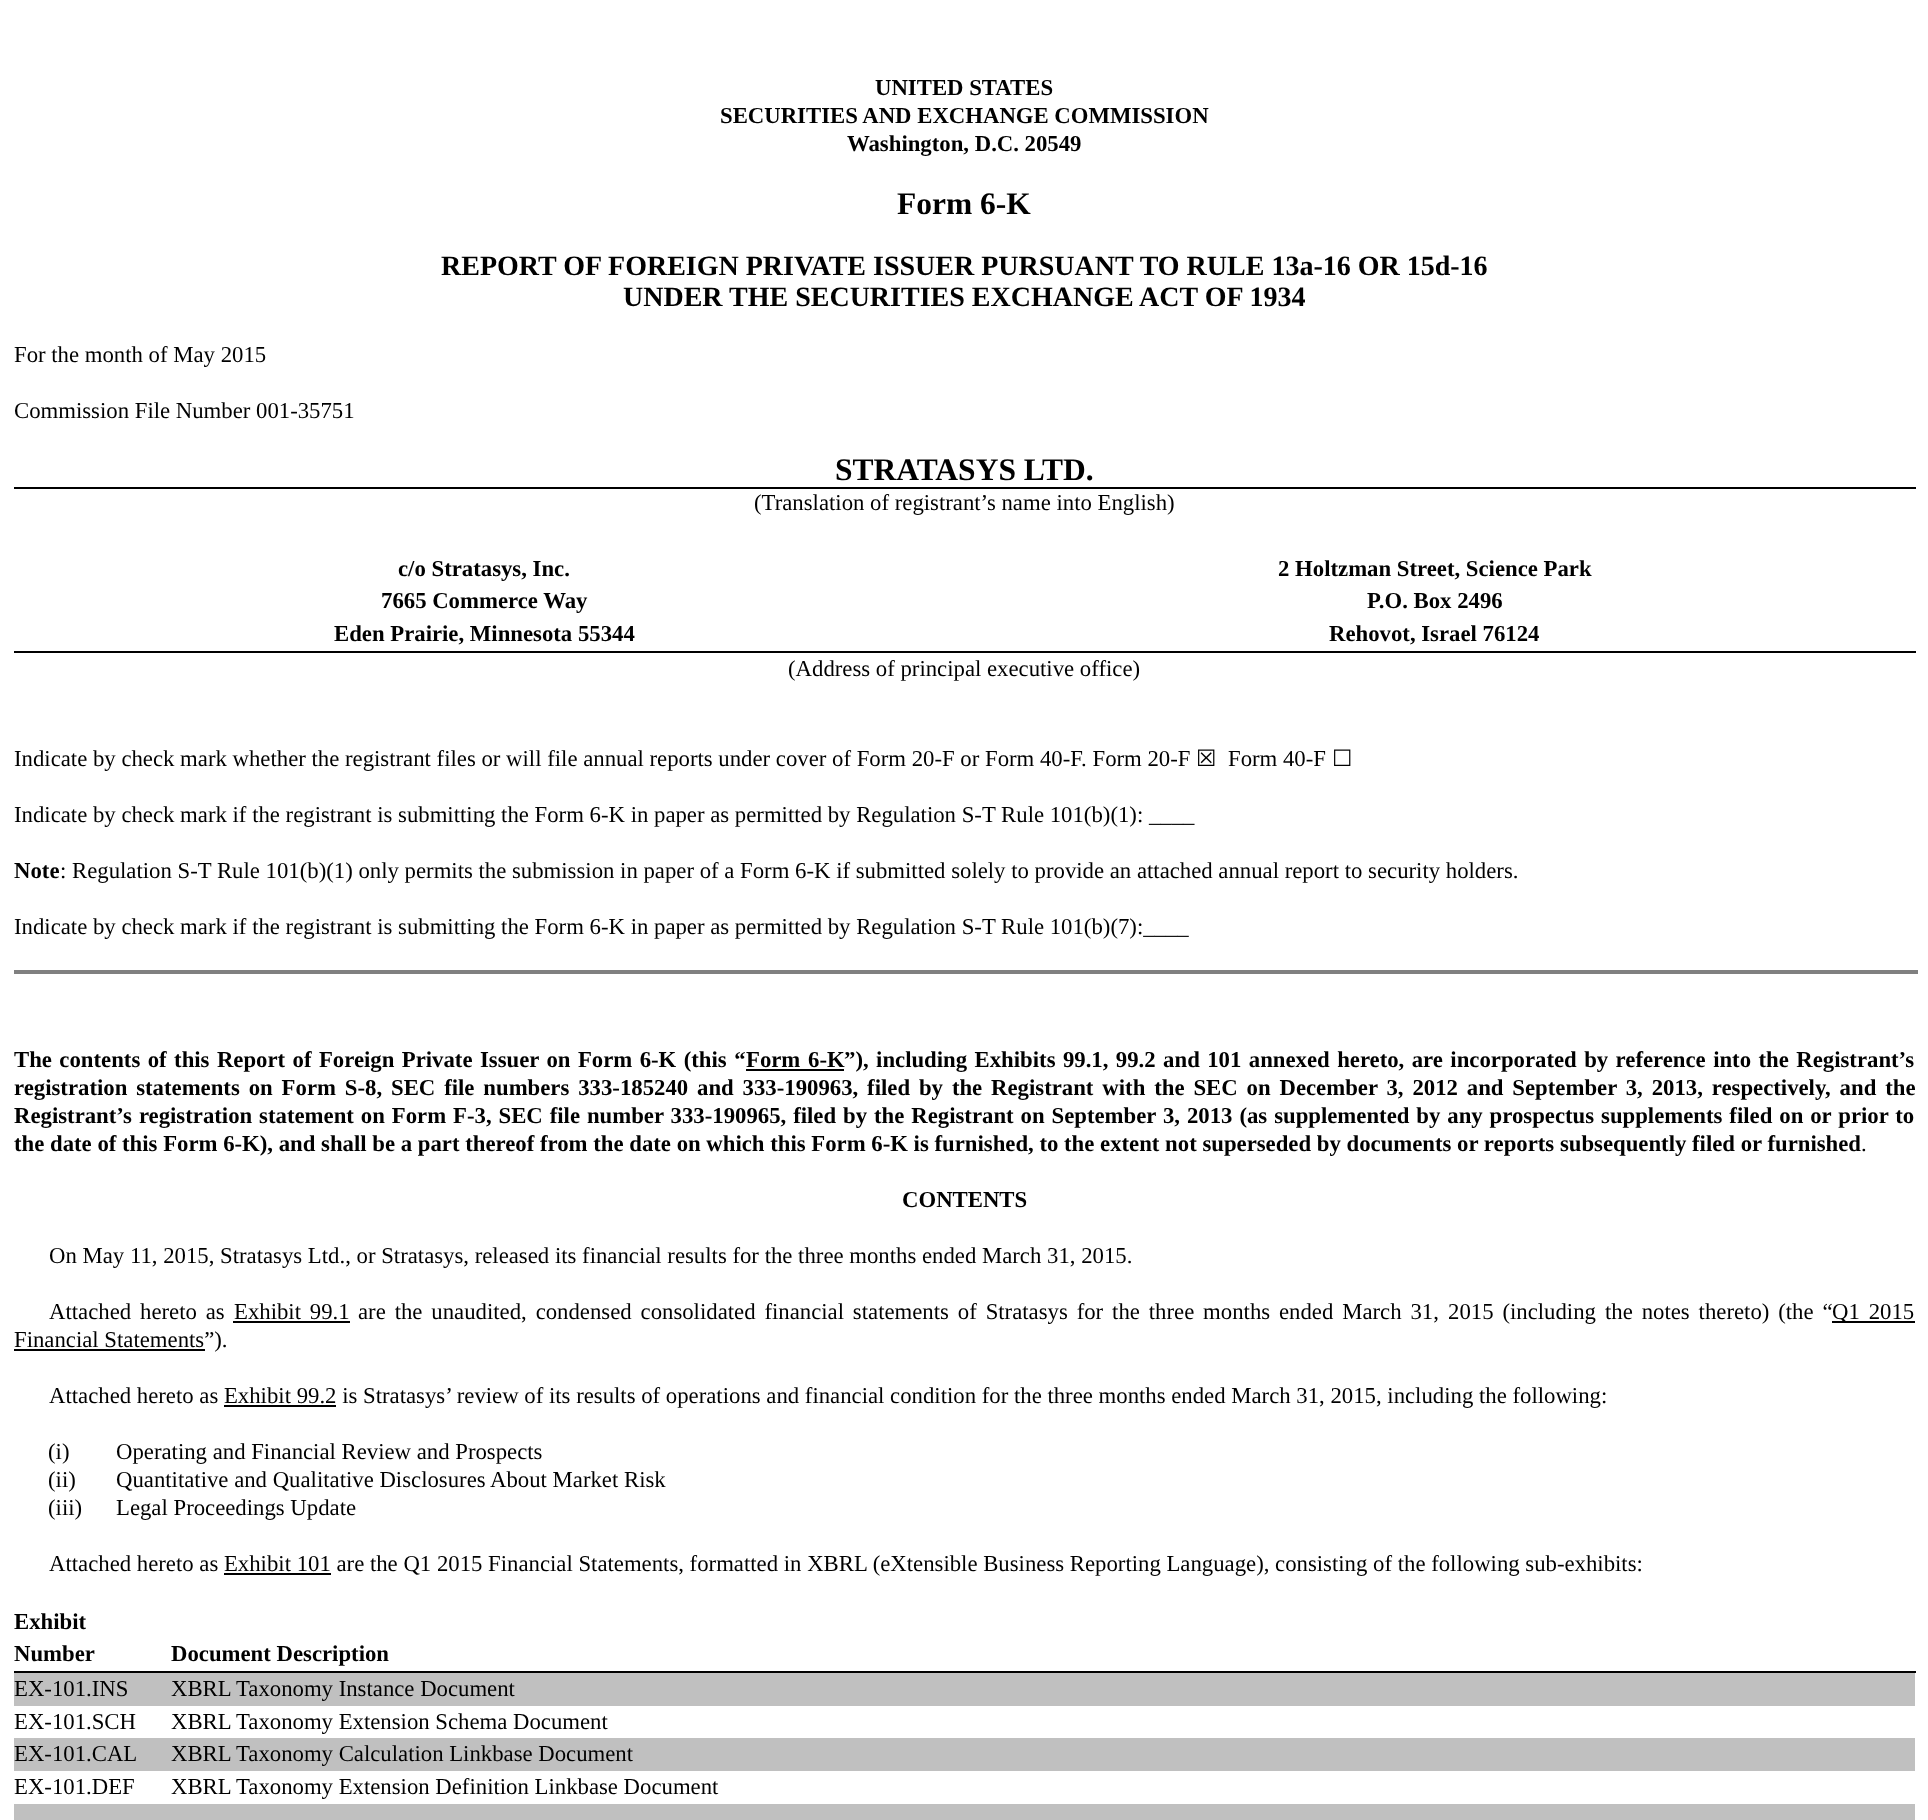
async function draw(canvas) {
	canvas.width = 1928;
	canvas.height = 1820;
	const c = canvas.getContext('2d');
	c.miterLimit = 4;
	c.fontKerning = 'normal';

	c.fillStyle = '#fff';
	c.fillRect(0, 0, 1928, 1820);
	c.font = 'bold 22.75px Liberation Serif';
	c.fillStyle = '#000';
	for (const [text, x, y] of [
		['UNITED STATES', 875, 95],
		['SECURITIES AND EXCHANGE COMMISSION', 720, 123],
		['Washington, D.C. 20549', 847, 151],
	]) {
		c.fillText(text, x, y);
	}
	c.font = 'bold 31.5px Liberation Serif';
	c.fillText('Form 6-K', 897, 214);
	c.font = 'bold 28px Liberation Serif';
	c.fillText('REPORT OF FOREIGN PRIVATE ISSUER PURSUANT TO RULE 13a-16 OR 15d-16', 441, 275);
	c.fillText('UNDER THE SECURITIES EXCHANGE ACT OF 1934', 623, 306);
	c.font = '22.75px Liberation Serif';
	c.fillText('For the month of May 2015', 14, 362);
	c.fillText('Commission File Number 001-35751', 14, 418);
	c.fillRect(14, 487, 1902, 2);
	c.font = 'bold 31.5px Liberation Serif';
	c.fillText('STRATASYS LTD.', 835, 480);
	c.font = '22.75px Liberation Serif';
	c.fillText('(Translation of registrant’s name into English)', 754, 510);
	c.font = 'bold 22.75px Liberation Serif';
	for (const [text, x, y] of [
		['c/o Stratasys, Inc.', 398, 576],
		['2 Holtzman Street, Science Park', 1278, 576],
		['7665 Commerce Way', 381, 608],
		['P.O. Box 2496', 1367, 608],
		['Eden Prairie, Minnesota 55344', 334, 641],
	]) {
		c.fillText(text, x, y);
	}
	c.fillRect(14, 651, 1902, 2);
	c.fillText('Rehovot, Israel 76124', 1329, 641);
	c.font = '22.75px Liberation Serif';
	c.fillText('(Address of principal executive office)', 788, 676);
	c.fillText('Indicate by check mark whether the registrant files or will file annual reports under cover of Form 20-F or Form 40-F. Form 20-F', 14, 766);
	c.font = '22.75px DejaVu Sans';
	c.fillText('☒', 1196, 766);
	c.font = '22.75px Liberation Serif';
	c.fillText('Form 40-F', 1228, 766);
	c.font = '22.75px DejaVu Sans';
	c.fillText('☐', 1332, 766);
	c.font = '22.75px Liberation Serif';
	c.fillText('Indicate by check mark if the registrant is submitting the Form 6-K in paper as permitted by Regulation S-T Rule 101(b)(1): ____', 14, 822);
	c.font = 'bold 22.75px Liberation Serif';
	c.fillText('Note', 14, 878);
	c.font = '22.75px Liberation Serif';
	c.fillText(': Regulation S-T Rule 101(b)(1) only permits the submission in paper of a Form 6-K if submitted solely to provide an attached annual report to security holders.', 60, 878);
	c.fillText('Indicate by check mark if the registrant is submitting the Form 6-K in paper as permitted by Regulation S-T Rule 101(b)(7):____', 14, 934);
	c.fillStyle = '#808080';
	c.fillRect(14, 970, 1904, 4);
	c.wordSpacing = '1.75px';
	c.font = 'bold 22.75px Liberation Serif';
	c.fillStyle = '#000';
	c.fillText('The contents of this Report of Foreign Private Issuer on Form 6-K (this “', 14, 1067);
	c.wordSpacing = '2px';
	c.fillText('Form 6-K', 746, 1067);
	c.fillRect(746, 1069, 98, 2);
	c.wordSpacing = '1.75px';
	c.fillText('”), including Exhibits 99.1, 99.2 and 101 annexed hereto, are incorporated by reference into the Registrant’s', 844, 1067);
	c.wordSpacing = '3.2px';
	c.fillText('registration statements on Form S-8, SEC file numbers 333-185240 and 333-190963, filed by the Registrant with the SEC on December 3, 2012 and September 3, 2013, respectively, and the', 14, 1095);
	c.wordSpacing = '1.25px';
	c.fillText('Registrant’s registration statement on Form F-3, SEC file number 333-190965, filed by the Registrant on September 3, 2013 (as supplemented by any prospectus supplements filed on or prior to', 14, 1123);
	c.wordSpacing = '0px';
	c.fillText('the date of this Form 6-K), and shall be a part thereof from the date on which this Form 6-K is furnished, to the extent not superseded by documents or reports subsequently filed or furnished', 14, 1151);
	c.font = '22.75px Liberation Serif';
	c.fillText('.', 1861, 1151);
	c.font = 'bold 22.75px Liberation Serif';
	c.fillText('CONTENTS', 902, 1207);
	c.font = '22.75px Liberation Serif';
	c.fillText('On May 11, 2015, Stratasys Ltd., or Stratasys, released its financial results for the three months ended March 31, 2015.', 49, 1263);
	c.wordSpacing = '3.2px';
	c.fillText('Attached hereto as', 49, 1319);
	c.fillText('Exhibit 99.1', 234, 1319);
	c.fillRect(233, 1321, 117, 2);
	for (const [text, x, y] of [
		['are the unaudited, condensed consolidated financial statements of Stratasys for the three months ended March 31,', 358, 1319],
		['2015 (including', 1448, 1319],
		['the notes thereto) (the “', 1605, 1319],
	]) {
		c.fillText(text, x, y);
	}
	c.fillRect(1832, 1321, 83, 2);
	c.fillText('Q1 2015', 1832, 1319);
	c.fillRect(14, 1349, 191, 2);
	c.wordSpacing = '0px';
	c.fillText('Financial Statements”).', 14, 1347);
	c.fillText('Attached hereto as Exhibit 99.2 is Stratasys’ review of its results of operations and financial condition for the three months ended March 31, 2015, including the following:', 49, 1403);
	c.fillRect(224, 1405, 112, 2);
	for (const [text, x, y] of [
		['(i)', 48, 1459],
		['Operating and Financial Review and Prospects', 116, 1459],
		['(ii)', 48, 1487],
		['Quantitative and Qualitative Disclosures About Market Risk', 116, 1487],
		['(iii)', 48, 1515],
		['Legal Proceedings Update', 116, 1515],
		['Attached hereto as Exhibit 101 are the Q1 2015 Financial Statements, formatted in XBRL (eXtensible Business Reporting Language), consisting of the following sub-exhibits:', 49, 1571],
	]) {
		c.fillText(text, x, y);
	}
	c.fillRect(224, 1573, 107, 2);
	c.font = 'bold 22.75px Liberation Serif';
	c.fillText('Exhibit', 14, 1629);
	c.fillText('Number', 14, 1661);
	c.fillRect(14, 1671, 1902, 2);
	c.fillText('Document Description', 171, 1661);
	c.fillStyle = '#c0c0c0';
	c.fillRect(14, 1673, 1901, 33);
	c.font = '22.75px Liberation Serif';
	c.fillStyle = '#000';
	for (const [text, x, y] of [
		['EX-101.INS', 14, 1696],
		['XBRL', 171, 1696],
		['Taxonomy Instance Document', 236, 1696],
		['EX-101.SCH', 14, 1729],
		['XBRL', 171, 1729],
		['Taxonomy Extension Schema Document', 236, 1729],
	]) {
		c.fillText(text, x, y);
	}
	c.fillStyle = '#c0c0c0';
	c.fillRect(14, 1738, 1901, 33);
	c.fillStyle = '#000';
	for (const [text, x, y] of [
		['EX-101.CAL', 14, 1761],
		['XBRL', 171, 1761],
		['Taxonomy Calculation Linkbase Document', 236, 1761],
		['EX-101.DEF', 14, 1794],
		['XBRL', 171, 1794],
		['Taxonomy Extension Definition Linkbase Document', 236, 1794],
	]) {
		c.fillText(text, x, y);
	}
	c.fillStyle = '#c0c0c0';
	c.fillRect(14, 1804, 1901, 16);
}

draw(document.querySelector('canvas'));
